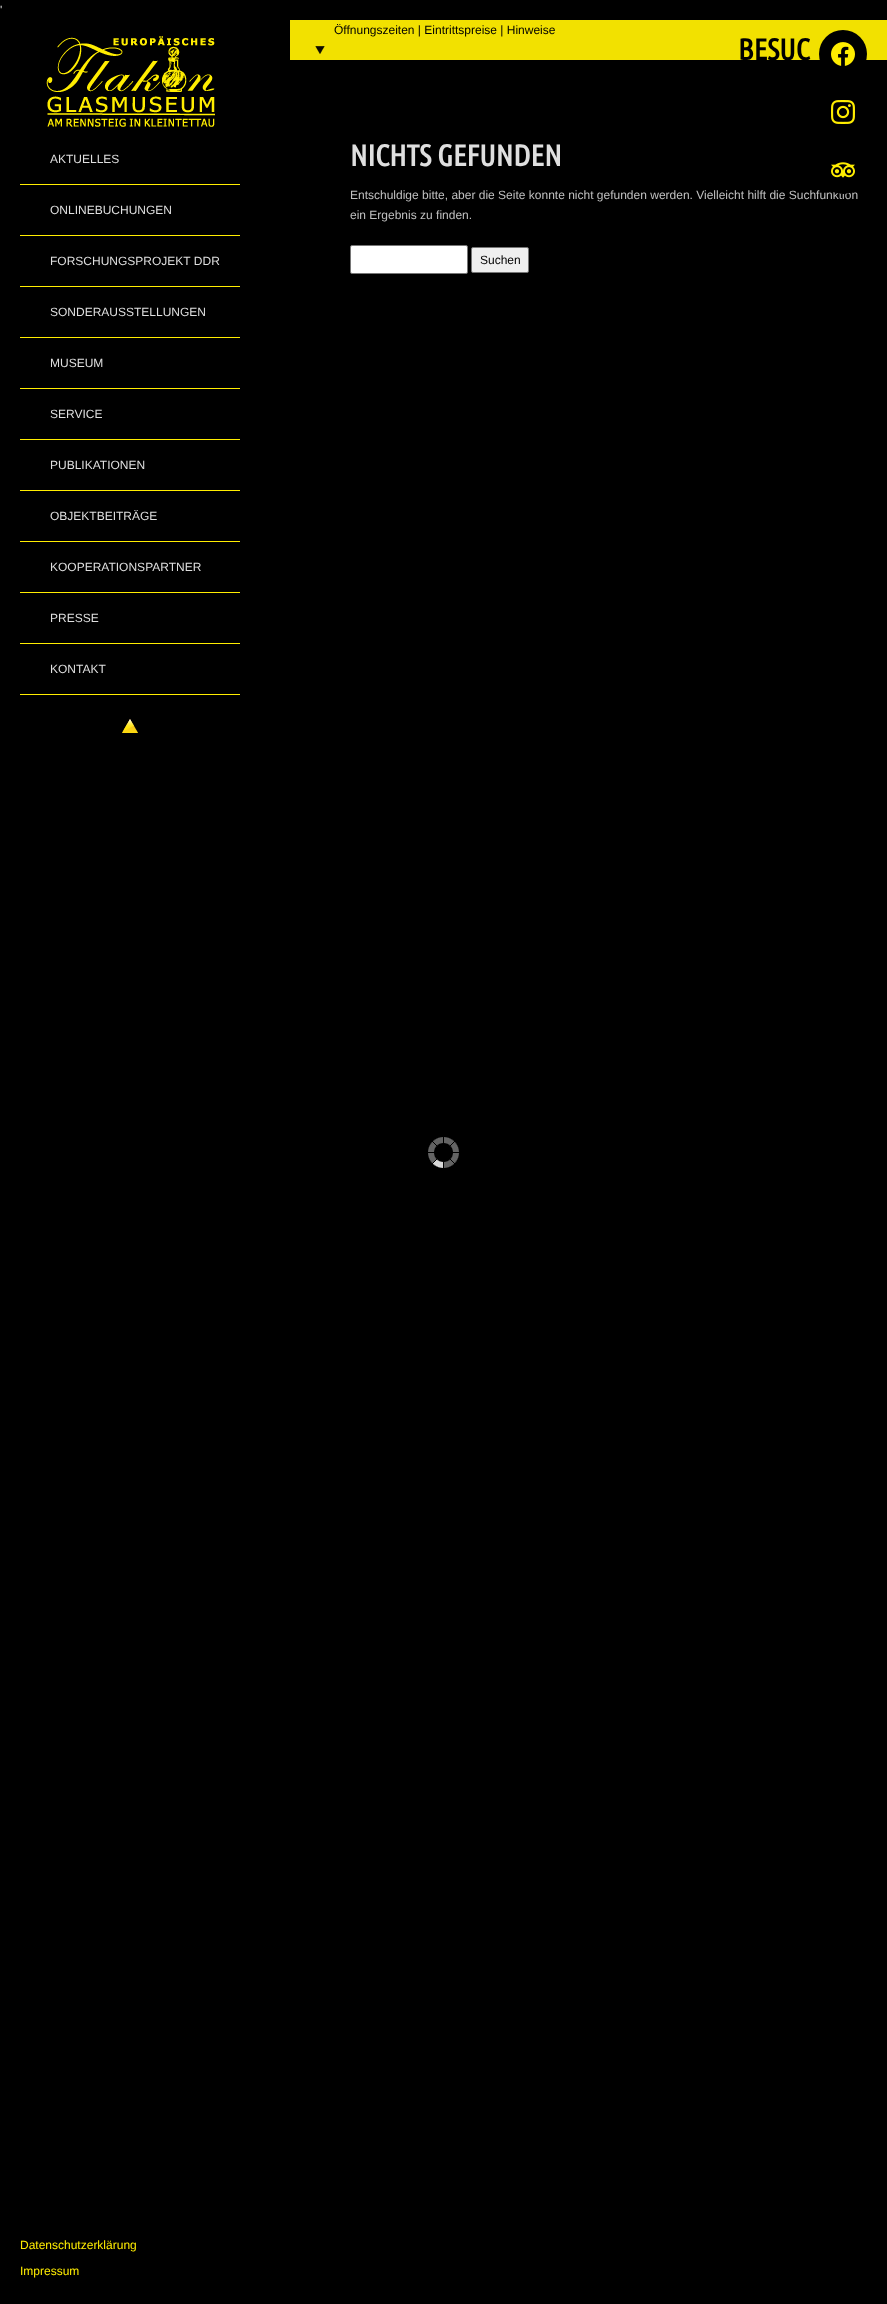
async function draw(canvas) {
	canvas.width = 887;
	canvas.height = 2304;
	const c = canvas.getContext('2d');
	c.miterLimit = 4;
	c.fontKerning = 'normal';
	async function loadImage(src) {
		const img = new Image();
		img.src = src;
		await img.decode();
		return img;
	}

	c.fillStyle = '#000';
	c.fillRect(0, 0, 887, 2304);
	c.font = '12px Liberation Sans';
	c.fillStyle = '#dfdfdf';
	c.fillText('\'', 0, 14);
	c.drawImage(await loadImage('img1.png'), 46, 36, 169, 91);
	c.fillStyle = '#ffed00';
	c.fillRect(20, 184, 220, 1);
	c.fillStyle = '#dfdfdf';
	c.fillText('AKTUELLES', 50, 163);
	c.fillStyle = '#ffed00';
	c.fillRect(20, 235, 220, 1);
	c.fillStyle = '#dfdfdf';
	c.fillText('ONLINEBUCHUNGEN', 50, 214);
	c.fillStyle = '#ffed00';
	c.fillRect(20, 286, 220, 1);
	c.fillStyle = '#dfdfdf';
	c.fillText('FORSCHUNGSPROJEKT DDR', 50, 265);
	c.fillStyle = '#ffed00';
	c.fillRect(20, 337, 220, 1);
	c.fillStyle = '#dfdfdf';
	c.fillText('SONDERAUSSTELLUNGEN', 50, 316);
	c.fillStyle = '#ffed00';
	c.fillRect(20, 388, 220, 1);
	c.fillStyle = '#dfdfdf';
	c.fillText('MUSEUM', 50, 367);
	c.fillStyle = '#ffed00';
	c.fillRect(20, 439, 220, 1);
	c.fillStyle = '#dfdfdf';
	c.fillText('SERVICE', 50, 418);
	c.fillStyle = '#ffed00';
	c.fillRect(20, 490, 220, 1);
	c.fillStyle = '#dfdfdf';
	c.fillText('PUBLIKATIONEN', 50, 469);
	c.fillStyle = '#ffed00';
	c.fillRect(20, 541, 220, 1);
	c.fillStyle = '#dfdfdf';
	c.fillText('OBJEKTBEITRÄGE', 50, 520);
	c.fillStyle = '#ffed00';
	c.fillRect(20, 592, 220, 1);
	c.fillStyle = '#dfdfdf';
	c.fillText('KOOPERATIONSPARTNER', 50, 571);
	c.fillStyle = '#ffed00';
	c.fillRect(20, 643, 220, 1);
	c.fillStyle = '#dfdfdf';
	c.fillText('PRESSE', 50, 622);
	c.fillStyle = '#ffed00';
	c.fillRect(20, 694, 220, 1);
	c.fillStyle = '#dfdfdf';
	c.fillText('KONTAKT', 50, 673);
	c.drawImage(await loadImage('img2.png'), 122, 719, 16, 14);
	c.fillStyle = '#f2e100';
	c.fillRect(290, 20, 597, 40);
	c.fillStyle = '#000';
	c.fillText('Öffnungszeiten | Eintrittspreise | Hinweise', 334, 34);
	c.drawImage(await loadImage('img3.png'), 315, 46, 10, 8);
	c.font = 'bold 30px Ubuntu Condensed';
	c.fillText('BESUC', 738, 60);
	c.fillStyle = '#dfdfdf';
	c.fillText('NICHTS GEFUNDEN', 350, 166);
	c.font = '12px Liberation Sans';
	c.fillStyle = '#c0c0c0';
	c.fillText('Entschuldige bitte, aber die Seite konnte nicht gefunden werden. Vielleicht hilft die Suchfunktion', 350, 199);
	c.fillText('ein Ergebnis zu finden.', 350, 219);
	c.fillStyle = '#fff';
	c.beginPath();
	c.roundRect(350.5, 245.5, 117, 28, 1.5);
	c.fill();
	c.strokeStyle = '#767676';
	c.stroke();
	c.fillStyle = '#efefef';
	c.beginPath();
	c.roundRect(471.5, 247.5, 57, 25, 1.5);
	c.fill();
	c.stroke();
	c.fillStyle = '#000';
	c.fillText('Suchen', 480, 264);
	c.beginPath();
	c.arc(843, 54, 24, 0, 2 * Math.PI);
	c.fill();
	c.drawImage(await loadImage('img4.png'), 831, 42, 24, 24);
	c.drawImage(await loadImage('img5.png'), 831, 100, 24, 24);
	c.beginPath();
	c.arc(843, 170, 24, 0, 2 * Math.PI);
	c.fill();
	c.drawImage(await loadImage('img6.png'), 831, 162, 24, 16);
	c.drawImage(await loadImage('img7.png'), 428, 1137, 31, 31);
	c.fillStyle = '#ffed00';
	c.fillText('Datenschutzerklärung', 20, 2249);
	c.fillText('Impressum', 20, 2275);
}

draw(document.querySelector('canvas'));
